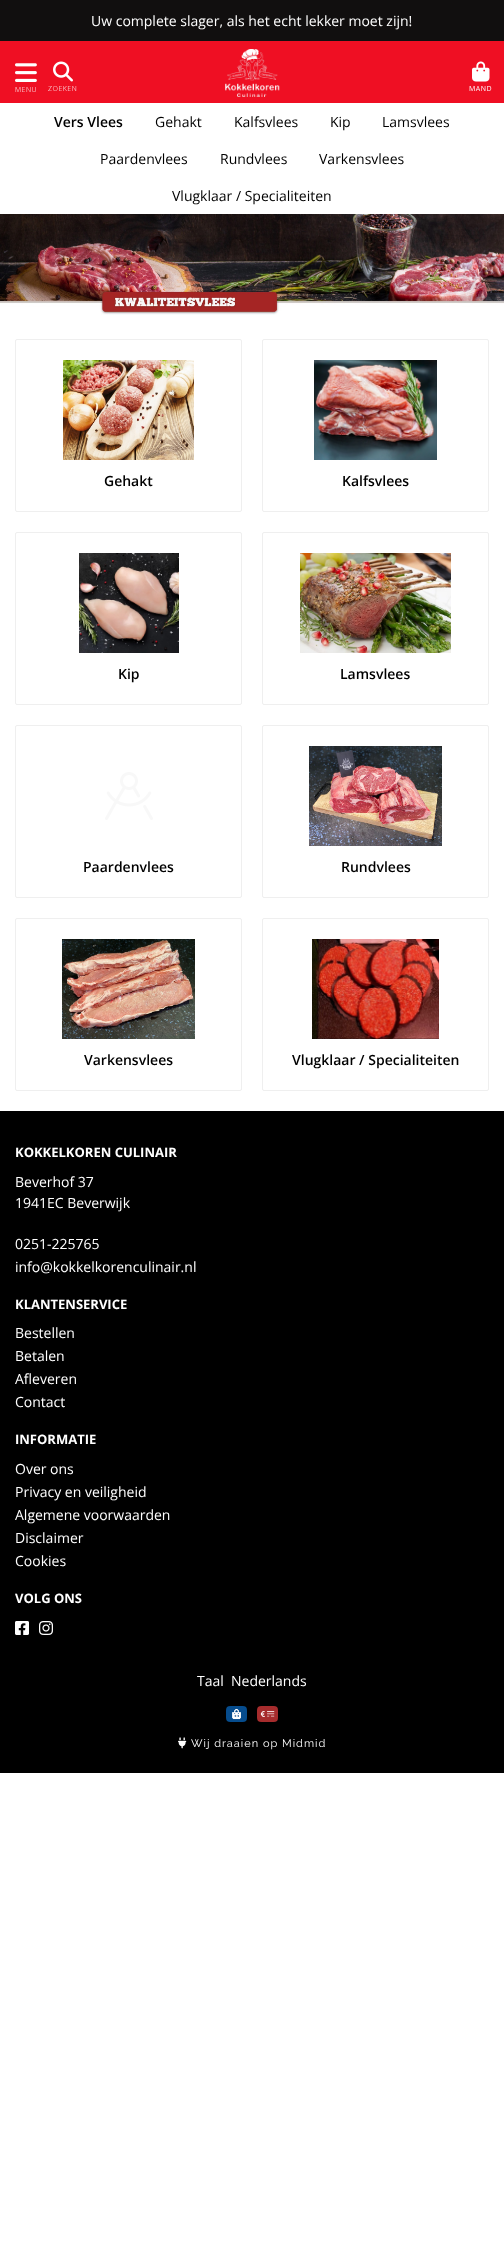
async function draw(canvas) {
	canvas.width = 504;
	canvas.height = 2243;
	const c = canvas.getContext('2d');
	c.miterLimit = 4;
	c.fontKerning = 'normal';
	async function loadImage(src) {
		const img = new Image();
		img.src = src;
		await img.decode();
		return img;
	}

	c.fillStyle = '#fff';
	c.fillRect(0, 0, 504, 2243);
	c.fillStyle = '#110f0f';
	c.fillRect(0, 0, 504, 41);
	c.font = '14px Open Sans';
	c.fillStyle = '#fff';
	c.fillText('Uw complete slager, als het echt lekker moet zijn!', 91, 26);
	c.fillStyle = '#ef0f23';
	c.fillRect(0, 41, 504, 62);
	c.drawImage(await loadImage('img1.png'), 15, 63, 22, 19);
	c.letterSpacing = '0.5px';
	c.font = '300 7px Open Sans';
	c.fillStyle = '#fff';
	c.fillText('MENU', 15, 92);
	c.drawImage(await loadImage('img2.png'), 53, 61, 20, 21);
	c.fillText('ZOEKEN', 48, 91);
	c.drawImage(await loadImage('img3.png'), 225, 49, 55, 48);
	c.drawImage(await loadImage('img4.png'), 472, 61, 18, 21);
	c.font = '7px Open Sans';
	c.fillText('MAND', 469, 91);
	c.letterSpacing = '0px';
	c.font = '600 14px Open Sans';
	c.fillStyle = '#000';
	c.fillText('Vers Vlees', 54, 127);
	c.font = '14px Open Sans';
	for (const [text, x, y] of [
		['Gehakt', 155, 127],
		['Kalfsvlees', 234, 127],
		['Kip', 330, 127],
		['Lamsvlees', 382, 127],
		['Paardenvlees', 100, 164],
		['Rundvlees', 220, 164],
		['Varkensvlees', 319, 164],
		['Vlugklaar / Specialiteiten', 172, 201],
	]) {
		c.fillText(text, x, y);
	}
	c.drawImage(await loadImage('img5.png'), 0, 214, 504, 101);
	c.beginPath();
	c.roundRect(15.5, 339.5, 226, 172, 1.5);
	c.strokeStyle = '#efefef';
	c.stroke();
	c.drawImage(await loadImage('img6.png'), 63, 360, 131, 100);
	c.font = '600 14px Open Sans';
	c.fillText('Gehakt', 104, 486);
	c.beginPath();
	c.roundRect(262.5, 339.5, 226, 172, 1.5);
	c.stroke();
	c.drawImage(await loadImage('img7.png'), 314, 360, 123, 100);
	c.fillText('Kalfsvlees', 342, 486);
	c.beginPath();
	c.roundRect(15.5, 532.5, 226, 172, 1.5);
	c.stroke();
	c.drawImage(await loadImage('img8.png'), 79, 553, 100, 100);
	c.fillText('Kip', 118, 679);
	c.beginPath();
	c.roundRect(262.5, 532.5, 226, 172, 1.5);
	c.stroke();
	c.drawImage(await loadImage('img9.png'), 300, 553, 151, 100);
	c.fillText('Lamsvlees', 340, 679);
	c.beginPath();
	c.roundRect(15.5, 725.5, 226, 172, 1.5);
	c.stroke();
	c.drawImage(await loadImage('img10.png'), 105, 772, 48, 48);
	c.fillText('Paardenvlees', 83, 872);
	c.beginPath();
	c.roundRect(262.5, 725.5, 226, 172, 1.5);
	c.stroke();
	c.drawImage(await loadImage('img11.png'), 309, 746, 133, 100);
	c.fillText('Rundvlees', 341, 872);
	c.beginPath();
	c.roundRect(15.5, 918.5, 226, 172, 1.5);
	c.stroke();
	c.drawImage(await loadImage('img12.png'), 62, 939, 133, 100);
	c.fillText('Varkensvlees', 84, 1065);
	c.beginPath();
	c.roundRect(262.5, 918.5, 226, 172, 1.5);
	c.stroke();
	c.drawImage(await loadImage('img13.png'), 312, 939, 127, 100);
	c.fillText('Vlugklaar / Specialiteiten', 292, 1065);
	c.fillRect(0, 1111, 504, 662);
	c.font = 'bold 13px Open Sans';
	c.fillStyle = '#fff';
	c.fillText('KOKKELKOREN CULINAIR', 15, 1157);
	c.font = '14px Open Sans';
	for (const [text, x, y] of [
		['Beverhof 37', 15, 1187],
		['1941EC Beverwijk', 15, 1208],
		['0251-225765', 15, 1249],
		['info@kokkelkorenculinair.nl', 15, 1272],
	]) {
		c.fillText(text, x, y);
	}
	c.font = 'bold 13px Open Sans';
	c.fillText('KLANTENSERVICE', 15, 1309);
	c.font = '14px Open Sans';
	for (const [text, x, y] of [
		['Bestellen', 15, 1338],
		['Betalen', 15, 1361],
		['Afleveren', 15, 1384],
		['Contact', 15, 1407],
	]) {
		c.fillText(text, x, y);
	}
	c.font = 'bold 13px Open Sans';
	c.fillText('INFORMATIE', 15, 1444);
	c.font = '14px Open Sans';
	for (const [text, x, y] of [
		['Over ons', 15, 1474],
		['Privacy en veiligheid', 15, 1497],
		['Algemene voorwaarden', 15, 1520],
		['Disclaimer', 15, 1543],
		['Cookies', 15, 1566],
	]) {
		c.fillText(text, x, y);
	}
	c.font = 'bold 13px Open Sans';
	c.fillText('VOLG ONS', 15, 1603);
	c.drawImage(await loadImage('img14.png'), 15, 1621, 14, 14);
	c.drawImage(await loadImage('img15.png'), 39, 1621, 14, 14);
	c.font = '14px Open Sans';
	c.fillText('Taal', 197, 1686);
	c.fillText('Nederlands', 231, 1686);
	c.drawImage(await loadImage('img16.png'), 226, 1706, 21, 16);
	c.drawImage(await loadImage('img17.png'), 257, 1706, 21, 16);
	c.drawImage(await loadImage('img18.png'), 178, 1737, 9, 12);
	c.letterSpacing = '1px';
	c.font = '11px Raleway';
	c.fillText('Wij draaien op Midmid', 191, 1747);
}

draw(document.querySelector('canvas'));
